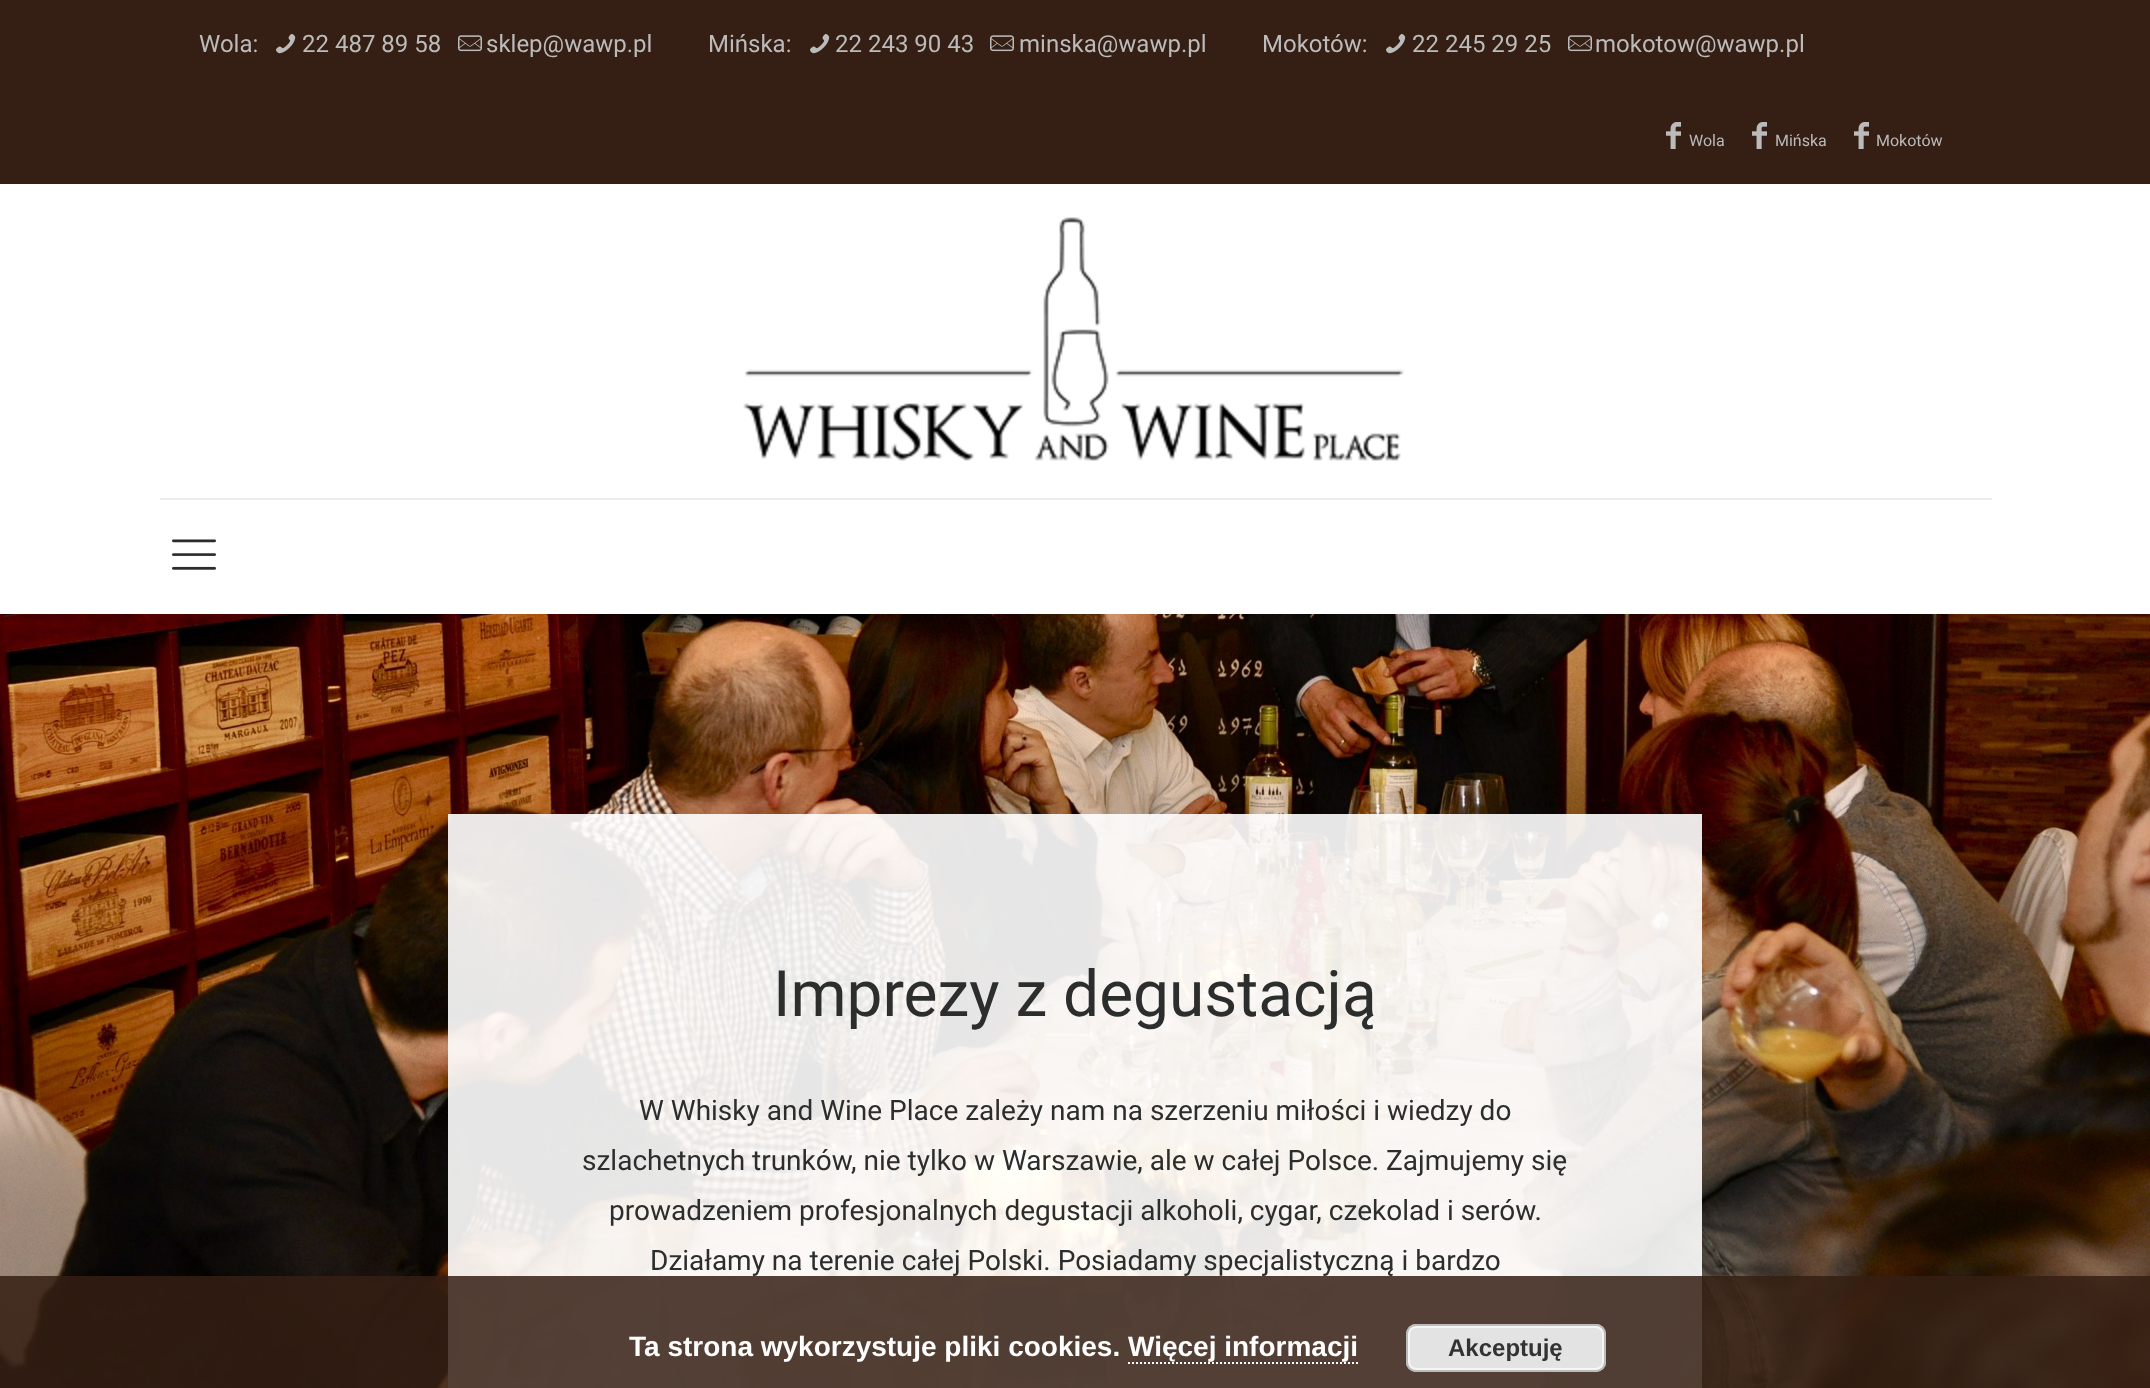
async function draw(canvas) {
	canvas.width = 2150;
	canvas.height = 1388;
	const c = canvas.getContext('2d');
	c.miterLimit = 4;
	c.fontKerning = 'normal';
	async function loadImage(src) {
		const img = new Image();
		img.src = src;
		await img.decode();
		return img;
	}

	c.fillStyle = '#351e13';
	c.fillRect(0, 0, 2150, 1388);
	c.font = '24px Roboto';
	c.fillStyle = '#bbb';
	c.fillText('Wola:', 199, 52);
	c.drawImage(await loadImage('img1.png'), 276, 34, 20, 20);
	c.fillText('22 487 89 58', 302, 52);
	c.drawImage(await loadImage('img2.png'), 458, 35, 24, 17);
	c.fillText('sklep@wawp.pl', 486, 52);
	c.fillText('Mińska:', 708, 52);
	c.drawImage(await loadImage('img1.png'), 810, 34, 20, 20);
	c.fillText('22 243 90 43', 835, 52);
	c.drawImage(await loadImage('img2.png'), 990, 35, 24, 17);
	c.fillText('minska@wawp.pl', 1019, 52);
	c.fillText('Mokotów:', 1262, 52);
	c.drawImage(await loadImage('img1.png'), 1386, 34, 20, 20);
	c.fillText('22 245 29 25', 1412, 52);
	c.drawImage(await loadImage('img2.png'), 1568, 35, 24, 17);
	c.fillText('mokotow@wawp.pl', 1595, 52);
	c.drawImage(await loadImage('img3.png'), 1666, 122, 15, 27);
	c.font = '16px Roboto';
	c.fillText('Wola', 1689, 146);
	c.drawImage(await loadImage('img3.png'), 1752, 122, 15, 27);
	c.fillText('Mińska', 1775, 146);
	c.drawImage(await loadImage('img3.png'), 1854, 122, 15, 27);
	c.fillText('Mokotów', 1876, 146);
	c.fillStyle = '#fff';
	c.fillRect(0, 184, 2150, 430);
	c.fillStyle = '#ebebeb';
	c.fillRect(160, 498, 1832, 2);
	c.drawImage(await loadImage('img4.png'), 743, 217, 661, 244);
	c.drawImage(await loadImage('img5.png'), 172, 539, 44, 31);
	c.drawImage(await loadImage('img6.png'), 0, 614, 2150, 774);
	c.fillStyle = '#ffffffe6';
	c.fillRect(448, 814, 1254, 574);
	c.font = '64px Roboto';
	c.fillStyle = '#2c2e2d';
	c.fillText('Imprezy z degustacją', 773, 1016);
	c.font = '28px Roboto';
	for (const [text, x, y] of [
		['W Whisky and Wine Place zależy nam na szerzeniu miłości i wiedzy do', 639, 1120],
		['szlachetnych trunków, nie tylko w Warszawie, ale w całej Polsce. Zajmujemy się', 582, 1170],
		['prowadzeniem profesjonalnych degustacji alkoholi, cygar, czekolad i serów.', 609, 1220],
		['Działamy na terenie całej Polski. Posiadamy specjalistyczną i bardzo', 650, 1270],
	]) {
		c.fillText(text, x, y);
	}
	c.fillStyle = '#351e13d9';
	c.fillRect(0, 1276, 2150, 112);
	c.font = 'bold 28px Liberation Sans';
	c.fillStyle = '#fff';
	c.fillText('Ta strona wykorzystuje pliki cookies. Więcej informacji', 629, 1356);
	c.fillStyle = '#e3e3e3';
	c.beginPath();
	c.roundRect(1406, 1324, 200, 48, 10);
	c.fill();
	c.beginPath();
	c.roundRect(1409, 1327, 194, 42, 7);
	c.strokeStyle = '#f6f6f6';
	c.lineWidth = 2;
	c.stroke();
	c.beginPath();
	c.roundRect(1407, 1325, 198, 46, 9);
	c.strokeStyle = '#bbb';
	c.stroke();
	c.font = 'bold 24px Liberation Sans';
	c.fillStyle = '#333';
	c.fillText('Akceptuję', 1448, 1356);
	c.beginPath();
	c.moveTo(1128, 1363);
	c.lineTo(1358, 1363);
	c.strokeStyle = '#fff';
	c.setLineDash([2, 2]);
	c.stroke();
}

draw(document.querySelector('canvas'));
